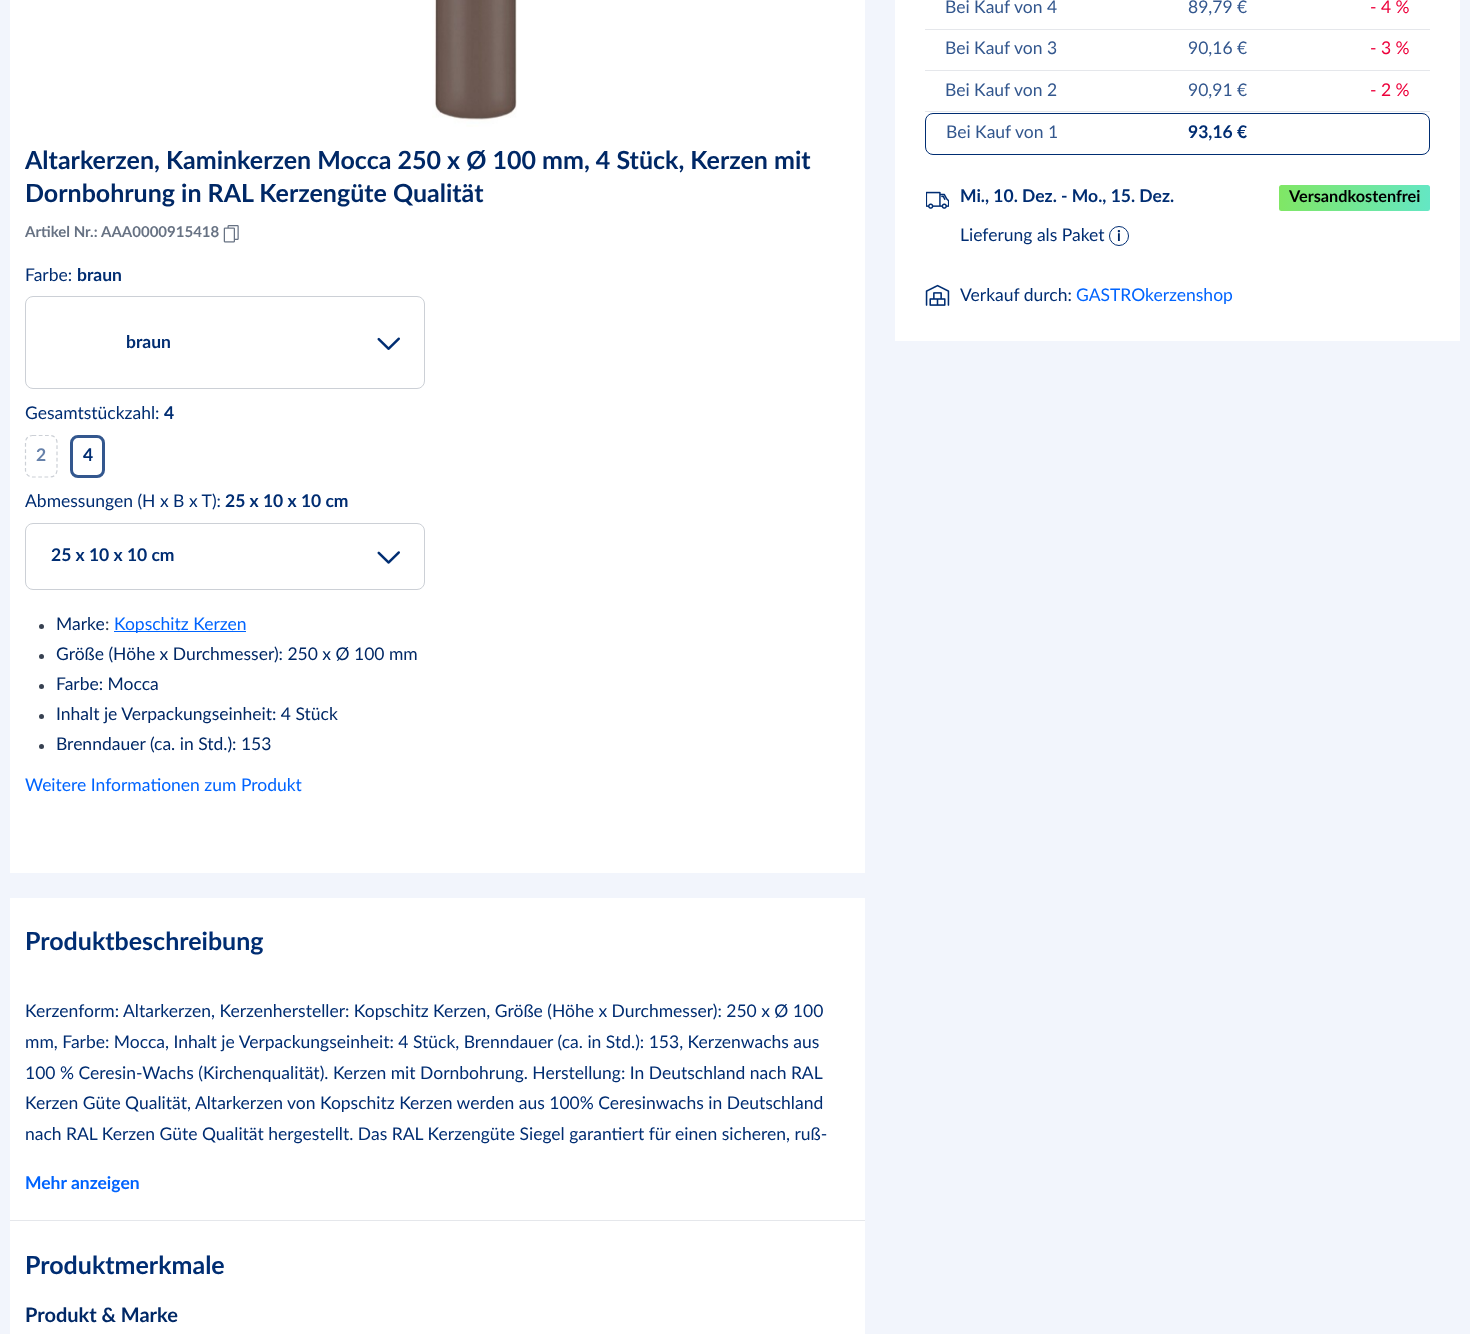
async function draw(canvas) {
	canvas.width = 1470;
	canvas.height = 1334;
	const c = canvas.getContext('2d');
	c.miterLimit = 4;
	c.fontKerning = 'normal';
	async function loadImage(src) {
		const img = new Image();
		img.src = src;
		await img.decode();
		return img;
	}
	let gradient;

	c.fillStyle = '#f2f5fc';
	c.fillRect(0, 0, 1470, 1334);
	c.fillStyle = '#fff';
	c.fillRect(10, 0, 855, 873);
	c.drawImage(await loadImage('img1.png'), 432, 0, 85, 127);
	c.font = 'bold 25px Lato';
	c.fillStyle = '#002866';
	c.fillText('Altarkerzen, Kaminkerzen Mocca 250 x Ø 100 mm, 4 Stück, Kerzen mit', 25, 169);
	c.fillText('Dornbohrung in RAL Kerzengüte Qualität', 25, 202);
	c.font = 'bold 15px Lato';
	c.fillStyle = '#677283';
	c.fillText('Artikel Nr.:', 25, 237);
	c.fillText('AAA0000915418', 101, 237);
	c.drawImage(await loadImage('img2.png'), 223, 225, 16, 18);
	c.font = '17.5px Lato';
	c.fillStyle = '#002d72';
	c.fillText('Farbe:', 25, 281);
	c.font = 'bold 17.5px Lato';
	c.fillText('braun', 77, 281);
	c.beginPath();
	c.roundRect(25.5, 296.5, 399, 92, 7.5);
	c.strokeStyle = '#ccd0d6';
	c.stroke();
	c.fillText('braun', 126, 348);
	c.drawImage(await loadImage('img3.png'), 377, 337, 23, 13);
	c.font = '17.5px Lato';
	c.fillText('Gesamtstückzahl:', 25, 419);
	c.font = 'bold 17.5px Lato';
	c.fillText('4', 164, 419);
	c.beginPath();
	c.moveTo(32.5, 435.5);
	c.lineTo(50, 435.5);
	c.bezierCurveTo(54, 435.5, 57, 438.5, 57, 442.5);
	c.lineTo(57, 470);
	c.bezierCurveTo(57, 474, 54, 477, 50, 477);
	c.lineTo(32.5, 477);
	c.bezierCurveTo(28.5, 477, 25.5, 474, 25.5, 470);
	c.lineTo(25.5, 442.5);
	c.bezierCurveTo(25.5, 438.5, 28.5, 435.5, 32.5, 435.5);
	c.closePath();
	c.lineWidth = 1.2;
	c.setLineDash([3.75, 2.5]);
	c.stroke();
	c.fillStyle = '#6681aa';
	c.fillText('2', 36, 461);
	c.beginPath();
	c.roundRect(71.5, 436.5, 32, 40, 6.5);
	c.strokeStyle = '#33578e';
	c.lineWidth = 3;
	c.setLineDash([]);
	c.stroke();
	c.fillStyle = '#002d72';
	c.fillText('4', 83, 461);
	c.font = '17.5px Lato';
	c.fillText('Abmessungen (H x B x T):', 25, 507);
	c.font = 'bold 17.5px Lato';
	c.fillText('25 x 10 x 10 cm', 225, 507);
	c.beginPath();
	c.roundRect(25.5, 523.5, 399, 66, 7.5);
	c.strokeStyle = '#ccd0d6';
	c.lineWidth = 1;
	c.stroke();
	c.fillText('25 x 10 x 10 cm', 51, 561);
	c.drawImage(await loadImage('img4.png'), 377, 551, 23, 13);
	c.fillStyle = '#374151';
	c.beginPath();
	c.arc(41.5, 626.5, 2.5, 0, 2 * Math.PI);
	c.fill();
	c.font = '17.5px Lato';
	c.fillStyle = '#002866';
	c.fillText('Marke', 56, 630);
	c.fillStyle = '#374151';
	c.fillText(':', 105, 630);
	c.fillStyle = '#0064fe';
	c.fillRect(114, 631, 132, 1);
	c.fillText('Kopschitz Kerzen', 114, 630);
	c.fillStyle = '#374151';
	c.beginPath();
	c.arc(41.5, 656.5, 2.5, 0, 2 * Math.PI);
	c.fill();
	c.fillStyle = '#002866';
	c.fillText('Größe (Höhe x Durchmesser): 250 x Ø 100 mm', 56, 660);
	c.fillStyle = '#374151';
	c.beginPath();
	c.arc(41.5, 686.5, 2.5, 0, 2 * Math.PI);
	c.fill();
	c.fillStyle = '#002866';
	c.fillText('Farbe: Mocca', 56, 690);
	c.fillStyle = '#374151';
	c.beginPath();
	c.arc(41.5, 716.5, 2.5, 0, 2 * Math.PI);
	c.fill();
	c.fillStyle = '#002866';
	c.fillText('Inhalt je Verpackungseinheit: 4 Stück', 56, 720);
	c.fillStyle = '#374151';
	c.beginPath();
	c.arc(41.5, 746.5, 2.5, 0, 2 * Math.PI);
	c.fill();
	c.fillStyle = '#002866';
	c.fillText('Brenndauer (ca. in Std.): 153', 56, 750);
	c.fillStyle = '#0064fe';
	c.fillText('Weitere Informationen zum Produkt', 25, 791);
	c.fillStyle = '#fff';
	c.fillRect(10, 898, 855, 436);
	c.fillStyle = '#e5e7eb';
	c.fillRect(10, 1220, 855, 1);
	c.font = 'bold 25px Lato';
	c.fillStyle = '#002d72';
	c.fillText('Produktbeschreibung', 25, 950);
	c.font = '17.5px Lato';
	for (const [text, x, y] of [
		['Kerzenform: Altarkerzen, Kerzenhersteller: Kopschitz Kerzen, Größe (Höhe x Durchmesser): 250 x Ø 100', 25, 1017],
		['mm, Farbe: Mocca, Inhalt je Verpackungseinheit: 4 Stück, Brenndauer (ca. in Std.): 153, Kerzenwachs aus', 25, 1048],
		['100 % Ceresin-Wachs (Kirchenqualität). Kerzen mit Dornbohrung. Herstellung: In Deutschland nach RAL', 25, 1079],
		['Kerzen Güte Qualität, Altarkerzen von Kopschitz Kerzen werden aus 100% Ceresinwachs in Deutschland', 25, 1109],
		['nach RAL Kerzen Güte Qualität hergestellt. Das RAL Kerzengüte Siegel garantiert für einen sicheren, ruß-', 25, 1140],
	]) {
		c.fillText(text, x, y);
	}
	c.font = 'bold 17.5px Lato';
	c.fillStyle = '#0064fe';
	c.fillText('Mehr anzeigen', 25, 1189);
	c.font = 'bold 25px Lato';
	c.fillStyle = '#002d72';
	c.fillText('Produktmerkmale', 25, 1274);
	c.font = 'bold 20px Lato';
	c.fillStyle = '#002866';
	c.fillText('Produkt & Marke', 25, 1322);
	c.fillStyle = '#fff';
	c.fillRect(895, 0, 565, 341);
	c.fillStyle = '#e5e7eb';
	c.fillRect(925, 29, 505, 1);
	c.font = '17.5px Lato';
	c.fillStyle = '#33578e';
	c.fillText('Bei Kauf von 4', 945, 13);
	c.fillText('89,79 €', 1188, 13);
	c.fillStyle = '#ed003b';
	c.fillText('- 4 %', 1370, 13);
	c.fillStyle = '#e5e7eb';
	c.fillRect(925, 70, 505, 1);
	c.fillStyle = '#33578e';
	c.fillText('Bei Kauf von 3', 945, 54);
	c.fillText('90,16 €', 1188, 54);
	c.fillStyle = '#ed003b';
	c.fillText('- 3 %', 1370, 54);
	c.fillStyle = '#e5e7eb';
	c.fillRect(925, 111, 505, 1);
	c.fillStyle = '#33578e';
	c.fillText('Bei Kauf von 2', 945, 96);
	c.fillText('90,91 €', 1188, 96);
	c.fillStyle = '#ed003b';
	c.fillText('- 2 %', 1370, 96);
	c.beginPath();
	c.roundRect(925.5, 113.5, 504, 41, 7.5);
	c.strokeStyle = '#002d72';
	c.stroke();
	c.fillStyle = '#33578e';
	c.fillText('Bei Kauf von 1', 946, 138);
	c.font = 'bold 17.5px Lato';
	c.fillStyle = '#002d72';
	c.fillText('93,16 €', 1188, 138);
	c.drawImage(await loadImage('img5.png'), 926, 191, 23, 18);
	c.fillText('Mi., 10. Dez. - Mo., 15. Dez.', 960, 202);
	gradient = c.createLinearGradient(1278, 194, 1430, 202);
	gradient.addColorStop(0, '#80e764');
	gradient.addColorStop(1, '#64e7c4');
	c.fillStyle = gradient;
	c.beginPath();
	c.roundRect(1279, 185, 151, 26, 2.5);
	c.fill();
	c.font = 'bold 16.25px Lato';
	c.fillStyle = '#000';
	c.fillText('Versandkostenfrei', 1289, 202);
	c.font = '17.5px Lato';
	c.fillStyle = '#002d72';
	c.fillText('Lieferung als Paket', 960, 241);
	c.beginPath();
	c.arc(1119, 236, 9.5, 0, 2 * Math.PI);
	c.stroke();
	c.font = 'bold 15px Lato';
	c.fillStyle = '#002866';
	c.fillText('i', 1117, 241);
	c.drawImage(await loadImage('img6.png'), 925, 284, 25, 22);
	c.font = '17.5px Lato';
	c.fillStyle = '#002d72';
	c.fillText('Verkauf durch:', 960, 301);
	c.fillStyle = '#0064fe';
	c.fillText('GASTROkerzenshop', 1076, 301);
}

draw(document.querySelector('canvas'));
